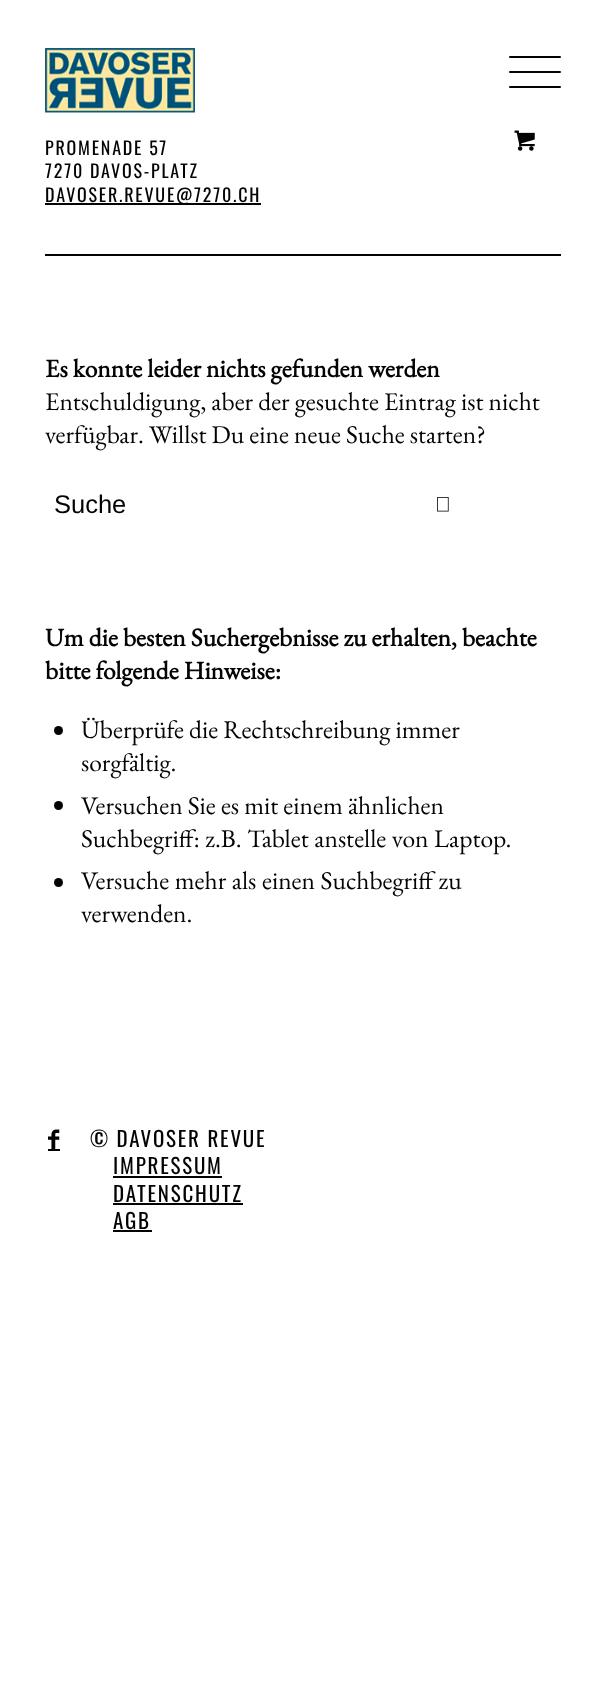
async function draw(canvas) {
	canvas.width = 606;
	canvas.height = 1698;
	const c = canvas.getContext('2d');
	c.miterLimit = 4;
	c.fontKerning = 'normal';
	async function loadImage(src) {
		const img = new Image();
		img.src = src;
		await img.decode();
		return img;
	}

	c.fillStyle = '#fff';
	c.fillRect(0, 0, 606, 1698);
	c.fillStyle = '#030303';
	c.fillRect(45, 254, 516, 2);
	c.drawImage(await loadImage('img1.png'), 45, 48, 150, 65);
	c.beginPath();
	c.roundRect(509, 71, 52, 2, 1);
	c.fill();
	c.beginPath();
	c.roundRect(509, 56, 52, 2, 1);
	c.fill();
	c.beginPath();
	c.roundRect(509, 86, 52, 2, 1);
	c.fill();
	c.letterSpacing = '1.8px';
	c.font = '18px Oswald';
	c.fillText('PROMENADE 57', 45, 155);
	c.fillText('7270 DAVOS-PLATZ', 45, 178);
	c.fillRect(45, 203, 216, 2);
	c.fillText('DAVOSER.REVUE@7270.CH', 45, 202);
	c.drawImage(await loadImage('img2.png'), 514, 130, 21, 21);
	c.letterSpacing = '0px';
	c.font = 'bold 25.5px EB Garamond';
	c.fillText('Es konnte leider nichts gefunden werden', 45, 377);
	c.font = '25.5px EB Garamond';
	c.fillText('Entschuldigung, aber der gesuchte Eintrag ist nicht', 45, 410);
	c.fillText('verfügbar. Willst Du eine neue Suche starten?', 45, 443);
	c.font = '25.5px Liberation Sans';
	c.fillText('Suche', 54, 513);
	c.drawImage(await loadImage('img3.png'), 437, 497, 12, 15);
	c.font = 'bold 25.5px EB Garamond';
	c.fillText('Um die besten Suchergebnisse zu erhalten, beachte', 45, 646);
	c.fillText('bitte folgende Hinweise:', 45, 679);
	c.beginPath();
	c.arc(58.5, 730.5, 4.5, 0, 2 * Math.PI);
	c.fill();
	c.font = '25.5px EB Garamond';
	c.fillText('Überprüfe die Rechtschreibung immer', 81, 738);
	c.fillText('sorgfältig.', 81, 771);
	c.beginPath();
	c.arc(58.5, 805.5, 4.5, 0, 2 * Math.PI);
	c.fill();
	c.fillText('Versuchen Sie es mit einem ähnlichen', 81, 814);
	c.wordSpacing = '0.5px';
	c.fillText('Suchbegriff: z.B. Tablet anstelle von Laptop.', 81, 847);
	c.beginPath();
	c.arc(58.5, 882.5, 4.5, 0, 2 * Math.PI);
	c.fill();
	c.fillText('Versuche mehr als einen Suchbegriff zu', 81, 889);
	c.wordSpacing = '0px';
	c.fillText('verwenden.', 81, 922);
	c.drawImage(await loadImage('img4.png'), 48, 1129, 12, 20);
	c.fillRect(48, 1149, 12, 2);
	c.letterSpacing = '1.8px';
	c.font = '21px Oswald';
	c.fillText('© DAVOSER REVUE', 90, 1147);
	c.fillText('IMPRESSUM', 113, 1174);
	c.fillRect(113, 1176, 109, 2);
	c.fillText('DATENSCHUTZ', 113, 1202);
	c.fillRect(113, 1203, 130, 2);
	c.fillText('AGB', 113, 1229);
	c.fillRect(113, 1230, 39, 2);
}

draw(document.querySelector('canvas'));
